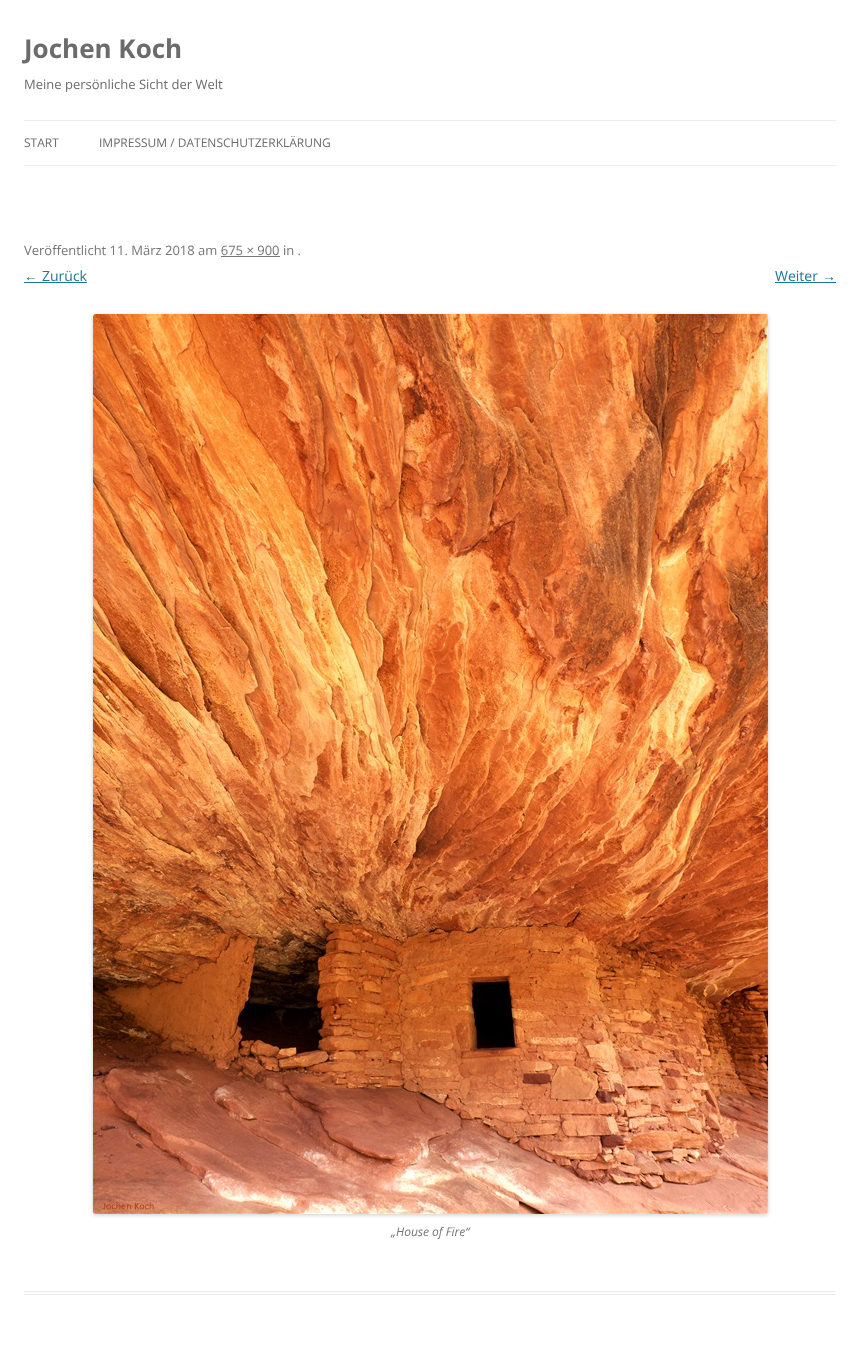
async function draw(canvas) {
	canvas.width = 860;
	canvas.height = 1370;
	const c = canvas.getContext('2d');
	c.miterLimit = 4;
	c.fontKerning = 'normal';
	async function loadImage(src) {
		const img = new Image();
		img.src = src;
		await img.decode();
		return img;
	}

	c.fillStyle = '#fff';
	c.fillRect(0, 0, 860, 1370);
	c.font = 'bold 26px Open Sans';
	c.fillStyle = '#6b6b6b';
	c.fillText('Jochen Koch', 24, 58);
	c.font = '13px Open Sans';
	c.fillText('Meine persönliche Sicht der Welt', 24, 89);
	c.fillStyle = '#ededed';
	c.fillRect(24, 120, 812, 1);
	c.fillRect(24, 165, 812, 1);
	c.font = '12px Open Sans';
	c.fillStyle = '#6b6b6b';
	c.fillText('START', 24, 147);
	c.fillText('IMPRESSUM / DATENSCHUTZERKLÄRUNG', 99, 147);
	c.fillStyle = '#ededed';
	c.fillRect(24, 1291, 812, 1);
	c.fillRect(24, 1294, 812, 1);
	c.font = '13px Open Sans';
	c.fillStyle = '#757575';
	c.fillText('Veröffentlicht 11. März 2018 am 675 × 900 in .', 24, 255);
	c.fillRect(221, 256, 59, 1);
	c.font = '14px Liberation Sans';
	c.fillStyle = '#21759b';
	c.fillText('←', 24, 281);
	c.fillRect(24, 282, 63, 1);
	c.font = '14px Open Sans';
	c.fillText('Zurück', 42, 281);
	c.fillText('Weiter', 775, 281);
	c.font = '14px Liberation Sans';
	c.fillText('→', 822, 281);
	c.fillRect(775, 282, 61, 1);
	c.fillStyle = '#00000033';
	c.filter = 'blur(2px)';
	c.beginPath();
	c.roundRect(93, 315, 675, 900, 3);
	c.fill();
	c.filter = 'none';
	c.drawImage(await loadImage('img1.png'), 93, 314, 675, 900);
	c.font = 'italic 12px Open Sans';
	c.fillStyle = '#757575';
	c.fillText('„House of Fire“', 391, 1236);
}

draw(document.querySelector('canvas'));
